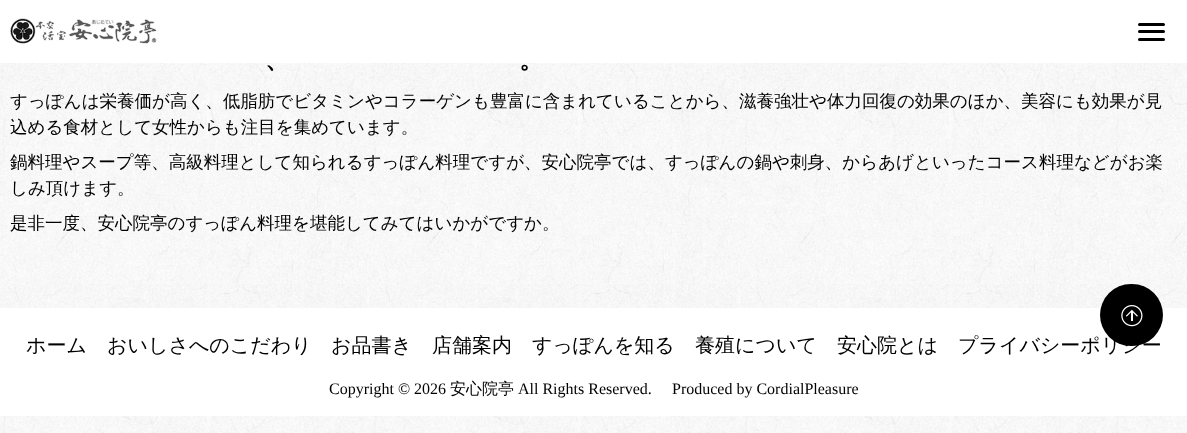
async function draw(canvas) {
	canvas.width = 1187;
	canvas.height = 433;
	const c = canvas.getContext('2d');
	c.miterLimit = 4;
	c.fontKerning = 'normal';
	async function loadImage(src) {
		const img = new Image();
		img.src = src;
		await img.decode();
		return img;
	}

	c.fillStyle = '#fff';
	c.fillRect(0, 0, 1187, 433);
	c.drawImage(await loadImage('img1.png'), 0, 63, 1187, 370);
	c.drawImage(await loadImage('img2.png'), 10, 18, 147, 26);
	c.fillStyle = '#000';
	c.beginPath();
	c.roundRect(1138, 23, 27, 3, 1.5);
	c.fill();
	c.beginPath();
	c.roundRect(1138, 30, 27, 3, 1.5);
	c.fill();
	c.beginPath();
	c.roundRect(1138, 38, 27, 3, 1.5);
	c.fill();
	c.font = 'bold 25px WenQuanYi Zen Hei';
	c.fillText('、', 265, 68);
	c.fillText('。', 519, 68);
	c.font = '500 17.5px WenQuanYi Zen Hei';
	for (const [text, x, y] of [
		['すっぽんは栄養価が高く、低脂肪でビタミンやコラーゲンも豊富に含まれていることから、滋養強壮や体力回復の効果のほか、美容にも効果が見', 10, 107],
		['込める食材として女性からも注目を集めています。', 10, 133],
		['鍋料理やスープ等、高級料理として知られるすっぽん料理ですが、安心院亭では、すっぽんの鍋や刺身、からあげといったコース料理などがお楽', 10, 168],
		['しみ頂けます。', 10, 194],
		['是非一度、安心院亭のすっぽん料理を堪能してみてはいかがですか。', 10, 229],
	]) {
		c.fillText(text, x, y);
	}
	c.fillStyle = '#fff';
	c.fillRect(0, 308, 1187, 108);
	c.fillStyle = '#000';
	c.beginPath();
	c.roundRect(1100, 284, 63, 62, 31);
	c.fill();
	c.drawImage(await loadImage('img3.png'), 1121, 305, 22, 22);
	c.font = '500 20px WenQuanYi Zen Hei';
	for (const [text, x, y] of [
		['ホーム', 26, 352],
		['おいしさへのこだわり', 107, 352],
		['お品書き', 331, 352],
		['店舗案内', 432, 352],
		['すっぽんを知る', 532, 352],
		['養殖について', 695, 352],
		['安心院とは', 837, 352],
		['プライバシーポリシー', 958, 352],
	]) {
		c.fillText(text, x, y);
	}
	c.font = '16px Liberation Serif';
	c.fillText('Copyright © 2026', 329, 394);
	c.font = '500 16px WenQuanYi Zen Hei';
	c.fillText('安心院亭', 450, 394);
	c.font = '16px Liberation Serif';
	c.fillText('All Rights Reserved.', 518, 394);
	c.fillText('Produced by CordialPleasure', 672, 394);
}

draw(document.querySelector('canvas'));
